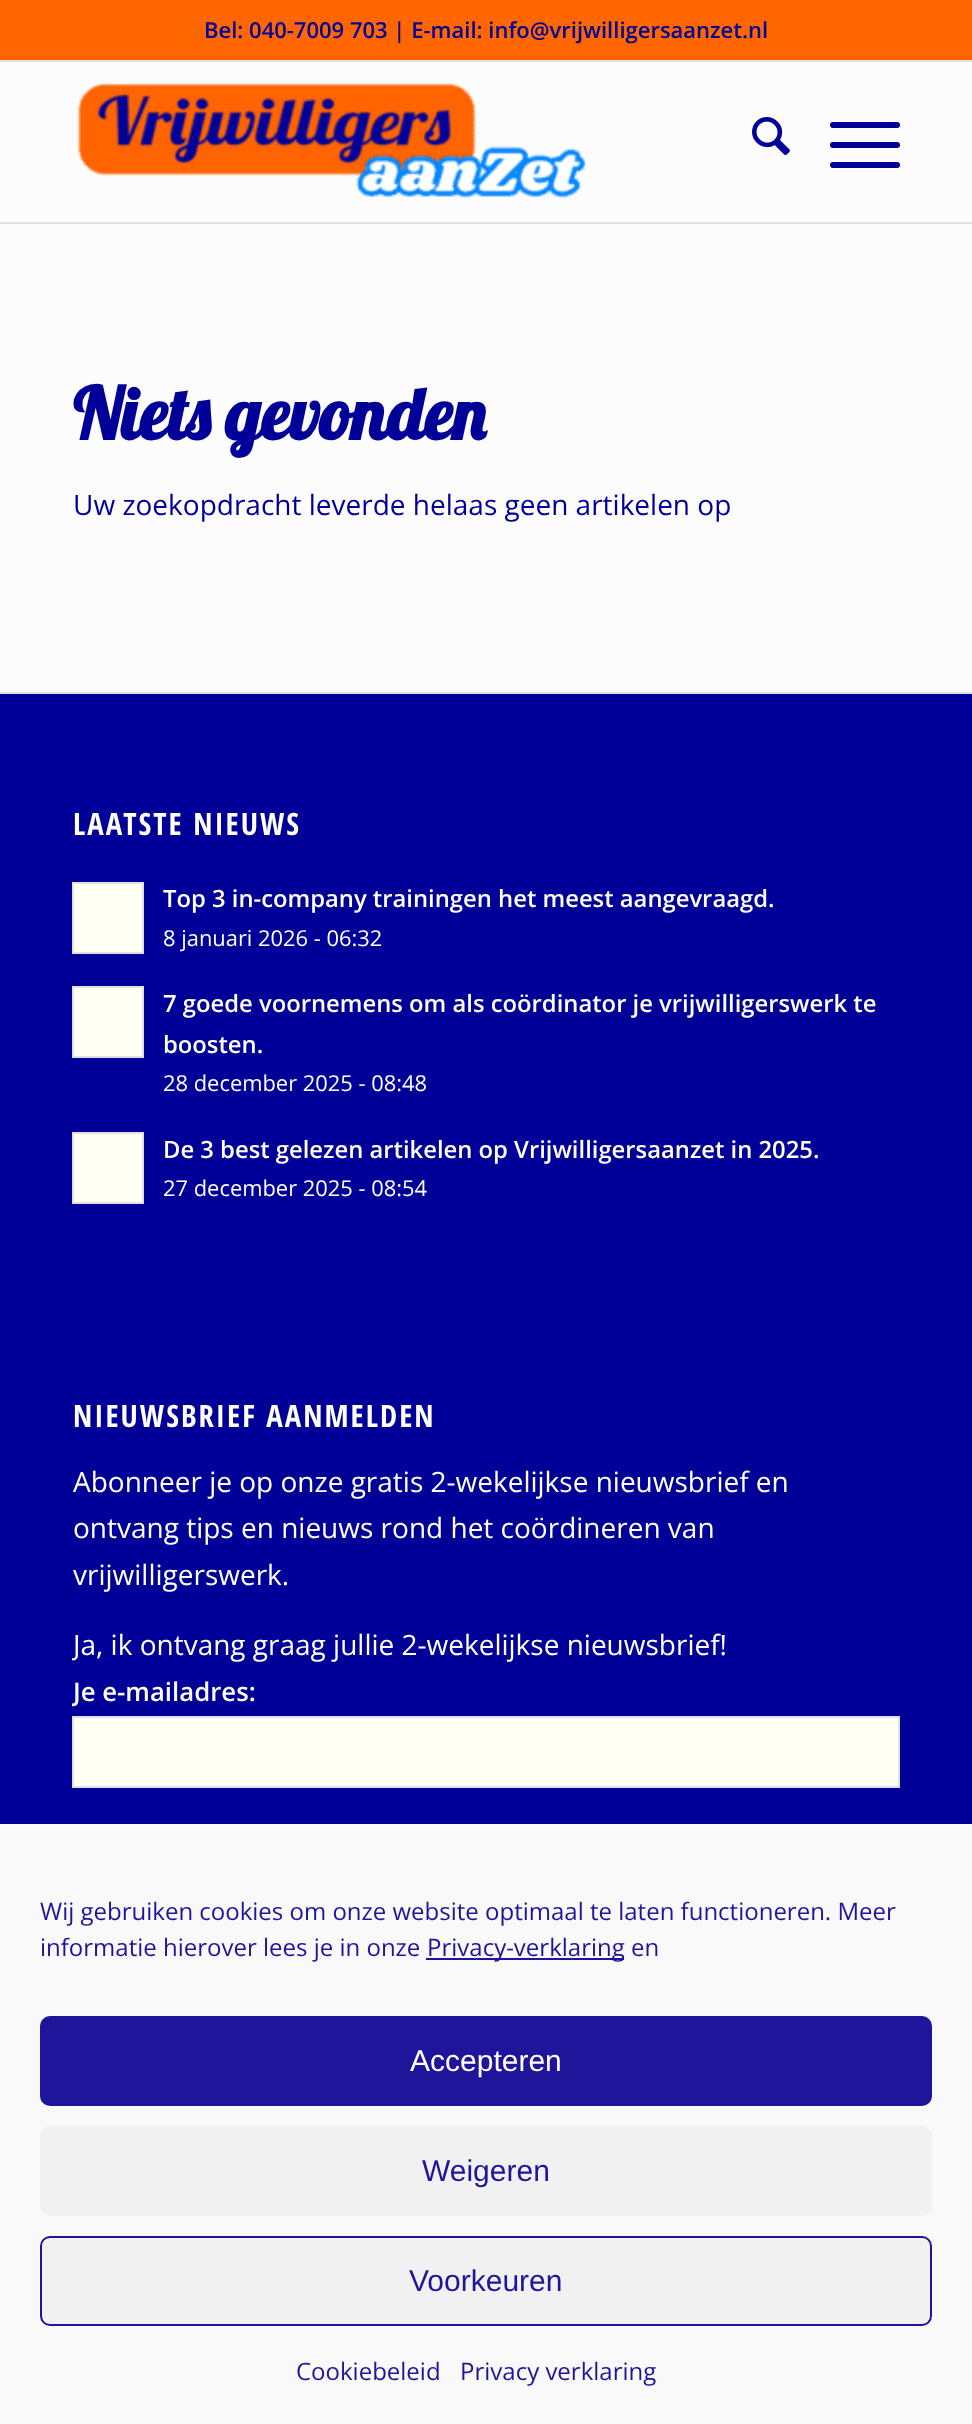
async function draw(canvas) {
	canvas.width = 972;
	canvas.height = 2424;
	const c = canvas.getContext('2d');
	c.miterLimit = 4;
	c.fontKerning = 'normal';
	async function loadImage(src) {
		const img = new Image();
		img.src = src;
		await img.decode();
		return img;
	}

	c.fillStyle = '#fcfcfc';
	c.fillRect(0, 0, 972, 2424);
	c.fillStyle = '#f60';
	c.fillRect(0, 0, 972, 60);
	c.fillStyle = '#e1e1e1';
	c.fillRect(0, 60, 972, 2);
	c.font = '600 22px Open Sans';
	c.fillStyle = '#009';
	c.fillText('Bel: 040-7009 703 | E-mail: info@vrijwilligersaanzet.nl', 204, 38);
	c.fillStyle = '#e1e1e1';
	c.fillRect(0, 222, 972, 2);
	c.drawImage(await loadImage('img1.png'), 77, 82, 510, 117);
	c.drawImage(await loadImage('img2.png'), 752, 117, 38, 38);
	c.fillStyle = '#009';
	c.beginPath();
	c.roundRect(830, 142, 70, 6, 3);
	c.fill();
	c.beginPath();
	c.roundRect(830, 122, 70, 6, 3);
	c.fill();
	c.beginPath();
	c.roundRect(830, 162, 70, 6, 3);
	c.fill();
	c.font = 'bold 72px Lobster';
	c.fillText('Niets gevonden', 73, 440);
	c.font = '28px Open Sans';
	c.fillText('Uw zoekopdracht leverde helaas geen artikelen op', 73, 515);
	c.fillRect(0, 694, 972, 1130);
	c.fillStyle = '#e1e1e1';
	c.fillRect(0, 692, 972, 2);
	c.letterSpacing = '2px';
	c.font = 'bold 30.75px Open Sans Condensed';
	c.fillStyle = '#fffff3';
	c.fillText('LAATSTE NIEUWS', 73, 835);
	c.fillStyle = '#fffff4';
	c.beginPath();
	c.rect(73, 883, 70, 70);
	c.fill();
	c.strokeStyle = '#e1e1e1';
	c.lineWidth = 2;
	c.stroke();
	c.letterSpacing = '0px';
	c.font = '600 23.8px Open Sans';
	c.fillStyle = '#fffff3';
	c.fillText('Top 3 in-company trainingen het meest aangevraagd.', 163, 907);
	c.font = '21.9px Open Sans';
	c.fillStyle = '#fff';
	c.fillText('8 januari 2026 - 06:32', 163, 946);
	c.fillStyle = '#fffff4';
	c.beginPath();
	c.rect(73, 987, 70, 70);
	c.fill();
	c.stroke();
	c.font = '600 23.8px Open Sans';
	c.fillStyle = '#fffff3';
	c.fillText('7 goede voornemens om als coördinator je vrijwilligerswerk te', 163, 1012);
	c.fillText('boosten.', 163, 1053);
	c.font = '21.9px Open Sans';
	c.fillStyle = '#fff';
	c.fillText('28 december 2025 - 08:48', 163, 1091);
	c.fillStyle = '#fffff4';
	c.beginPath();
	c.rect(73, 1133, 70, 70);
	c.fill();
	c.stroke();
	c.font = '600 23.8px Open Sans';
	c.fillStyle = '#fffff3';
	c.fillText('De 3 best gelezen artikelen op Vrijwilligersaanzet in 2025.', 163, 1158);
	c.font = '21.9px Open Sans';
	c.fillStyle = '#fff';
	c.fillText('27 december 2025 - 08:54', 163, 1196);
	c.letterSpacing = '2px';
	c.font = 'bold 30.75px Open Sans Condensed';
	c.fillStyle = '#fffff3';
	c.fillText('NIEUWSBRIEF AANMELDEN', 73, 1427);
	c.letterSpacing = '0px';
	c.font = '28px Open Sans';
	for (const [text, x, y] of [
		['Abonneer je op onze gratis 2-wekelijkse nieuwsbrief en', 73, 1492],
		['ontvang tips en nieuws rond het coördineren van', 73, 1538],
		['vrijwilligerswerk.', 73, 1585],
	]) {
		c.fillText(text, x, y);
	}
	c.save();
	c.beginPath();
	c.rect(72, 1374, 828, 566);
	c.clip();
	c.fillText('Ja, ik ontvang graag jullie 2-wekelijkse nieuwsbrief!', 73, 1655);
	c.font = '600 25.75px Open Sans';
	c.fillText('Je e-mailadres:', 73, 1701);
	c.restore();
	c.fillStyle = '#fffff4';
	c.beginPath();
	c.rect(73, 1717, 826, 70);
	c.fill();
	c.stroke();
	c.fillStyle = '#00000030';
	c.filter = 'blur(20px)';
	c.beginPath();
	c.rect(0, 1844, 972, 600);
	c.fill();
	c.filter = 'none';
	c.fillStyle = '#f9f9f9';
	c.fillRect(0, 1824, 972, 600);
	c.font = '24px Open Sans';
	c.fillStyle = '#1e159b';
	c.fillText('Wij gebruiken cookies om onze website optimaal te laten functioneren. Meer', 40, 1920);
	c.fillText('informatie hierover lees je in onze', 40, 1956);
	c.fillRect(426, 1958, 198, 2);
	c.fillText('Privacy-verklaring en', 427, 1956);
	c.beginPath();
	c.roundRect(41, 2017, 890, 88, 9);
	c.fill();
	c.strokeStyle = '#1e159b';
	c.stroke();
	c.font = '30px Liberation Sans';
	c.fillStyle = '#fff';
	c.fillText('Accepteren', 410, 2071);
	c.fillStyle = '#f1f1f1';
	c.beginPath();
	c.roundRect(40, 2126, 892, 90, 10);
	c.fill();
	c.fillStyle = '#1e159b';
	c.fillText('Weigeren', 422, 2181);
	c.fillStyle = '#f1f1f1';
	c.beginPath();
	c.roundRect(41, 2237, 890, 88, 9);
	c.fill();
	c.stroke();
	c.fillStyle = '#1e159b';
	c.fillText('Voorkeuren', 409, 2291);
	c.font = '24px Open Sans';
	c.fillText('Cookiebeleid', 296, 2380);
	c.fillText('Privacy verklaring', 460, 2380);
}

draw(document.querySelector('canvas'));
